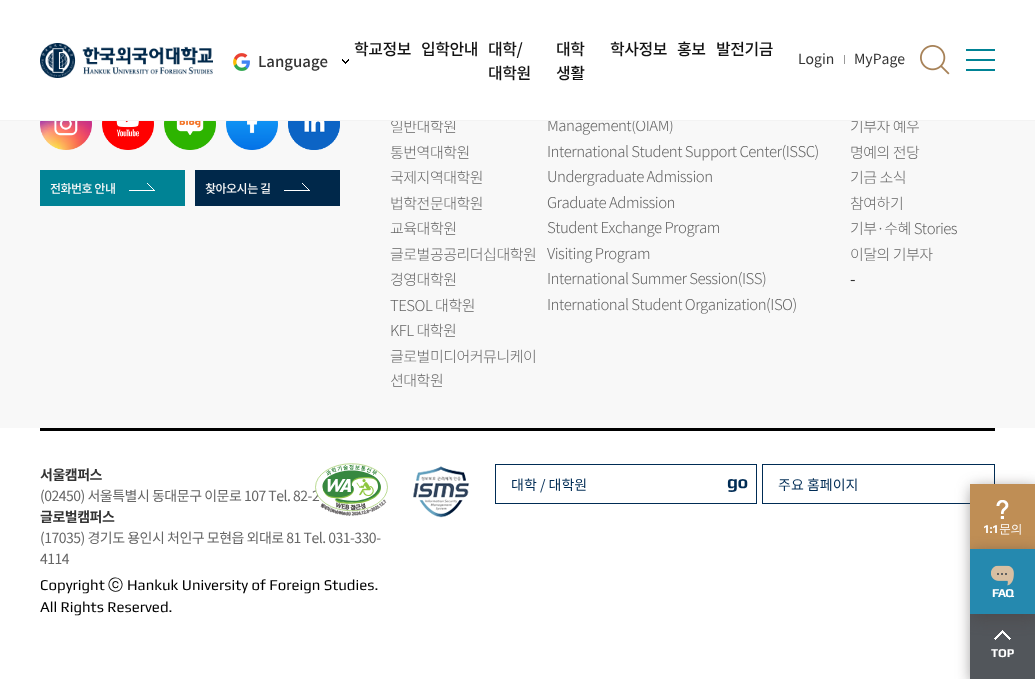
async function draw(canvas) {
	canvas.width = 1035;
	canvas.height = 679;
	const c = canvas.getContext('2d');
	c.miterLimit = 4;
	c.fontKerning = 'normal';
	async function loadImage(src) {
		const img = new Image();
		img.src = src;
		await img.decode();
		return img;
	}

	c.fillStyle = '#fff';
	c.fillRect(0, 0, 1035, 679);
	c.fillStyle = '#f8f8f8';
	c.fillRect(0, 121, 1035, 307);
	c.letterSpacing = '-0.5px';
	c.font = '300 15px Noto Sans KR';
	c.fillStyle = '#666';
	for (const [text, x, y] of [
		['일반대학원', 390, 132],
		['Management(OIAM)', 547, 131],
		['기부자 예우', 850, 132],
	]) {
		c.fillText(text, x, y);
	}
	c.fillStyle = '#fff';
	c.fillRect(400, 118, 505, 2);
	c.fillStyle = '#f3f3f3';
	c.fillRect(0, 120, 1035, 1);
	c.drawImage(await loadImage('img1.png'), 40, 43, 173, 35);
	c.drawImage(await loadImage('img2.png'), 233, 53, 17, 18);
	c.letterSpacing = '0px';
	c.font = '500 15px Noto Sans KR';
	c.fillStyle = '#333';
	c.fillText('Language', 258, 67);
	c.drawImage(await loadImage('img3.png'), 342, 59, 7, 5);
	c.letterSpacing = '-0.5px';
	c.font = '500 16px Noto Sans KR';
	c.fillStyle = '#121212';
	for (const [text, x, y] of [
		['학교정보', 354, 55],
		['입학안내', 421, 55],
		['대학/', 488, 55],
		['대학원', 488, 79],
		['대학', 556, 55],
		['생활', 556, 79],
		['학사정보', 610, 55],
		['홍보', 677, 55],
		['발전기금', 716, 55],
	]) {
		c.fillText(text, x, y);
	}
	c.letterSpacing = '0px';
	c.font = '14px Noto Sans KR';
	c.fillStyle = '#333';
	c.fillText('Login', 798, 64);
	c.fillStyle = '#999';
	c.fillRect(844, 55, 1, 9);
	c.fillStyle = '#333';
	c.fillText('MyPage', 854, 64);
	c.drawImage(await loadImage('img4.png'), 920, 45, 30, 30);
	c.drawImage(await loadImage('img5.png'), 966, 49, 29, 22);
	c.drawImage(await loadImage('img6.png'), 40, 121, 52, 29);
	c.drawImage(await loadImage('img7.png'), 102, 121, 52, 29);
	c.drawImage(await loadImage('img8.png'), 164, 121, 52, 29);
	c.drawImage(await loadImage('img9.png'), 226, 121, 52, 29);
	c.drawImage(await loadImage('img10.png'), 288, 121, 52, 29);
	c.fillStyle = '#008395';
	c.fillRect(40, 170, 145, 36);
	c.letterSpacing = '-0.5px';
	c.font = '500 12px Noto Sans KR';
	c.fillStyle = '#f8f8f8';
	c.fillText('전화번호 안내', 50, 193);
	c.drawImage(await loadImage('img11.png'), 129, 183, 26, 8);
	c.fillStyle = '#00284a';
	c.fillRect(195, 170, 145, 36);
	c.fillStyle = '#f8f8f8';
	c.fillText('찾아오시는 길', 205, 193);
	c.drawImage(await loadImage('img12.png'), 284, 183, 26, 8);
	c.font = '300 15px Noto Sans KR';
	c.fillStyle = '#666';
	for (const [text, x, y] of [
		['통번역대학원', 390, 158],
		['국제지역대학원', 390, 183],
		['법학전문대학원', 390, 209],
		['교육대학원', 390, 234],
		['글로벌공공리더십대학원', 390, 260],
		['경영대학원', 390, 285],
		['TESOL 대학원', 390, 311],
		['KFL 대학원', 390, 336],
		['글로벌미디어커뮤니케이', 390, 362],
		['션대학원', 390, 386],
		['International Student Support Center(ISSC)', 547, 157],
		['Undergraduate Admission', 547, 182],
		['Graduate Admission', 547, 208],
		['Student Exchange Program', 547, 233],
		['Visiting Program', 547, 259],
		['International Summer Session(ISS)', 547, 284],
		['International Student Organization(ISO)', 547, 310],
		['명예의 전당', 850, 158],
		['기금 소식', 850, 183],
		['참여하기', 850, 209],
		['기부·수혜 Stories', 850, 234],
		['이달의 기부자', 850, 260],
	]) {
		c.fillText(text, x, y);
	}
	c.font = '16px Noto Sans KR';
	c.fillStyle = '#333';
	c.fillText('-', 850, 285);
	c.fillStyle = '#000';
	c.fillRect(40, 428, 955, 3);
	c.font = 'bold 14px Noto Sans KR';
	c.fillStyle = '#333';
	c.fillText('서울캠퍼스', 40, 480);
	c.font = '14px Noto Sans KR';
	c.fillStyle = '#666';
	c.fillText('(02450) 서울특별시 동대문구 이문로 107 Tel. 82-2', 40, 501);
	c.font = 'bold 14px Noto Sans KR';
	c.fillStyle = '#333';
	c.fillText('글로벌캠퍼스', 40, 522);
	c.font = '14px Noto Sans KR';
	c.fillStyle = '#666';
	c.fillText('(17035) 경기도 용인시 처인구 모현읍 외대로 81 Tel. 031-330-', 40, 543);
	c.fillText('4114', 40, 564);
	c.drawImage(await loadImage('img13.png'), 315, 463, 73, 53);
	c.drawImage(await loadImage('img14.png'), 413, 466, 57, 52);
	c.letterSpacing = '0px';
	c.font = '15px Play';
	c.fillStyle = '#000';
	c.fillText('Copyright', 40, 590);
	c.font = '500 15px WenQuanYi Zen Hei';
	c.fillText('ⓒ', 108, 590);
	c.font = '15px Play';
	c.fillText('Hankuk University of Foreign Studies.', 127, 590);
	c.fillText('All Rights Reserved.', 40, 612);
	c.strokeStyle = '#002c55';
	c.strokeRect(495.5, 464.5, 261, 39);
	c.font = '14px Noto Sans KR';
	c.fillStyle = '#002c55';
	c.fillText('대학 / 대학원', 511, 490);
	c.letterSpacing = '-0.5px';
	c.font = 'bold 18px Play';
	c.fillText('go', 727, 488);
	c.strokeRect(762.5, 464.5, 232, 39);
	c.letterSpacing = '0px';
	c.font = '14px Noto Sans KR';
	c.fillText('주요 홈페이지', 778, 490);
	c.fillStyle = '#494343a3';
	c.filter = 'blur(7.5px)';
	c.beginPath();
	c.rect(972, 488, 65, 65);
	c.fill();
	c.filter = 'none';
	c.fillStyle = '#bf8e55';
	c.fillRect(970, 484, 65, 65);
	c.drawImage(await loadImage('img15.png'), 996, 500, 13, 19);
	c.letterSpacing = '-0.5px';
	c.font = 'bold 12px Play';
	c.fillStyle = '#fff';
	c.fillText('1:1', 983, 533);
	c.font = '500 12px WenQuanYi Zen Hei';
	c.fillText('문의', 999, 533);
	c.fillStyle = '#494343a3';
	c.filter = 'blur(7.5px)';
	c.beginPath();
	c.rect(972, 618, 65, 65);
	c.fill();
	c.filter = 'none';
	c.fillStyle = '#52565b';
	c.fillRect(970, 614, 65, 65);
	c.drawImage(await loadImage('img17.png'), 994, 630, 17, 10);
	c.fillStyle = '#494343a3';
	c.filter = 'blur(7.5px)';
	c.beginPath();
	c.rect(972, 553, 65, 65);
	c.fill();
	c.filter = 'none';
	c.fillStyle = '#2589af';
	c.fillRect(970, 549, 65, 65);
	c.drawImage(await loadImage('img16.png'), 991, 565, 23, 21);
	c.font = 'bold 12px Play';
	c.fillStyle = '#fff';
	c.fillText('FAQ', 992, 597);
	c.letterSpacing = '0px';
	c.fillText('TOP', 991, 657);
}

draw(document.querySelector('canvas'));
